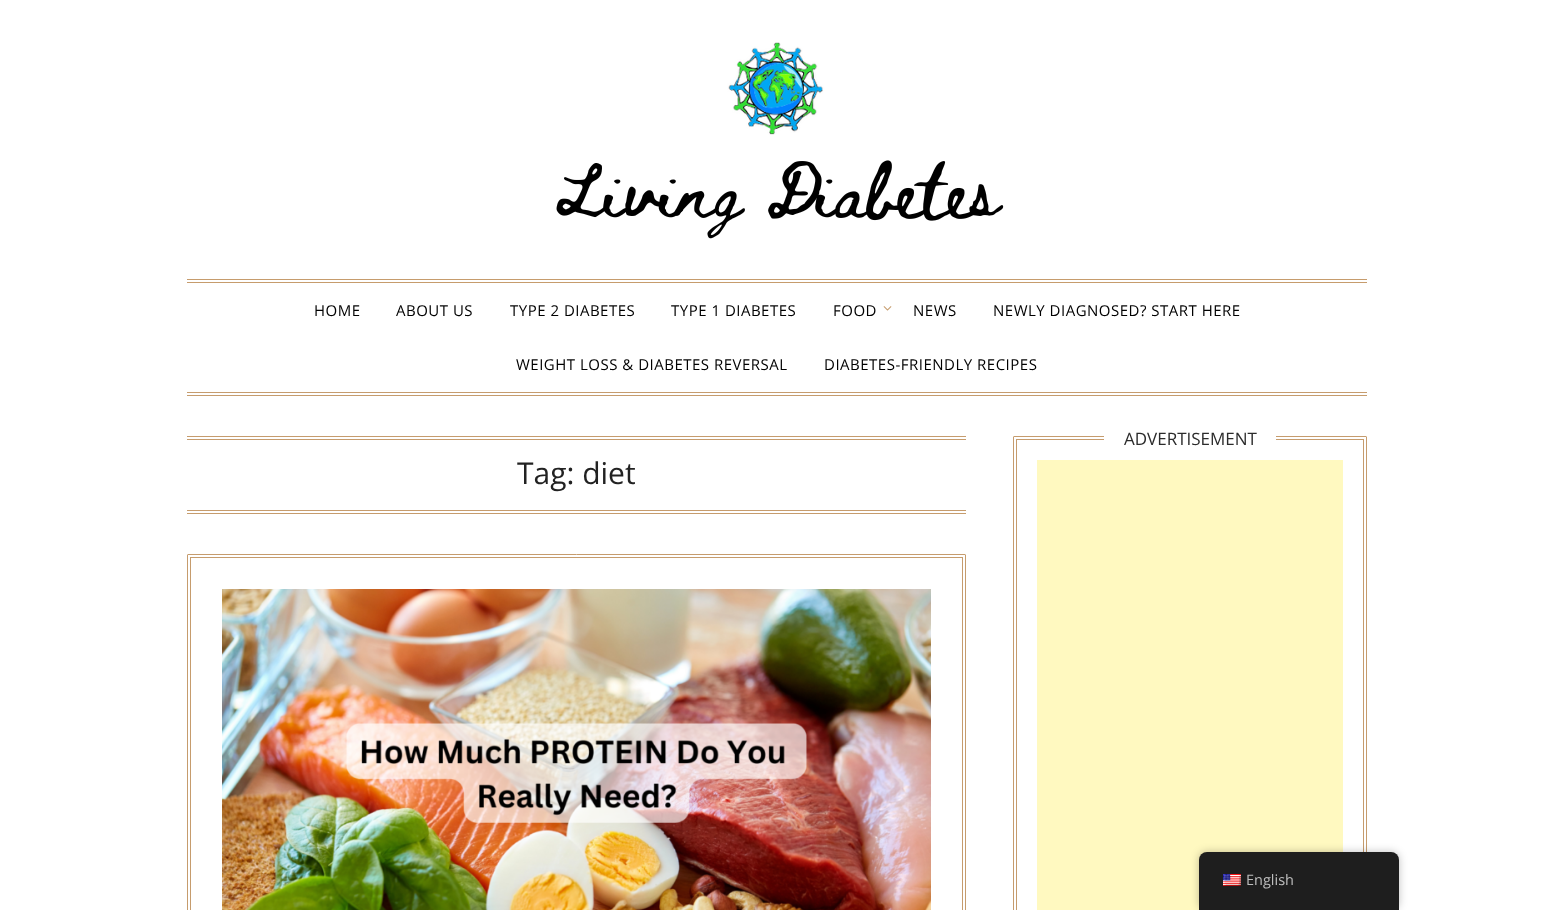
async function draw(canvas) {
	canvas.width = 1554;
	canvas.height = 910;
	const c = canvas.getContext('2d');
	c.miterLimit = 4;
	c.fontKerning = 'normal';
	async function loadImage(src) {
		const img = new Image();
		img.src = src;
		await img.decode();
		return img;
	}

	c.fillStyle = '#fff';
	c.fillRect(0, 0, 1554, 910);
	c.drawImage(await loadImage('img1.png'), 556, 42, 448, 197);
	for (const [x, y, w, h, color] of [
		[187, 279, 1180, 1, '#c69c6d'],
		[187, 282, 1180, 1, '#c69c6d'],
		[187, 392, 1180, 1, '#c69c6d'],
		[187, 395, 1180, 1, '#c69c6d'],
	]) {
		c.fillStyle = color;
		c.fillRect(x, y, w, h);
	}
	c.letterSpacing = '0.5px';
	c.font = '15px Open Sans';
	c.fillStyle = '#000';
	for (const [text, x, y] of [
		['HOME', 314, 316],
		['ABOUT US', 396, 316],
		['TYPE 2 DIABETES', 510, 316],
		['TYPE 1 DIABETES', 671, 316],
		['FOOD', 833, 316],
	]) {
		c.fillText(text, x, y);
	}
	c.drawImage(await loadImage('img2.png'), 883, 306, 9, 5);
	for (const [text, x, y] of [
		['NEWS', 913, 316],
		['NEWLY DIAGNOSED? START HERE', 993, 316],
		['WEIGHT LOSS & DIABETES REVERSAL', 516, 370],
		['DIABETES-FRIENDLY RECIPES', 824, 370],
	]) {
		c.fillText(text, x, y);
	}
	c.beginPath();
	c.roundRect(1013.5, 436.5, 353, 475, 0.5);
	c.strokeStyle = '#c69c6d';
	c.stroke();
	c.strokeRect(1016.5, 439.5, 347, 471);
	c.fillStyle = '#fff';
	c.fillRect(1104, 436, 172, 4);
	c.letterSpacing = '0px';
	c.font = '17px Open Sans';
	c.fillStyle = '#2b2b2b';
	c.fillText('ADVERTISEMENT', 1124, 445);
	for (const [x, y, w, h, color] of [
		[1037, 460, 306, 450, '#fff9c0'],
		[187, 436, 779, 1, '#c69c6d'],
		[187, 439, 779, 1, '#c69c6d'],
		[187, 510, 779, 1, '#c69c6d'],
		[187, 513, 779, 1, '#c69c6d'],
	]) {
		c.fillStyle = color;
		c.fillRect(x, y, w, h);
	}
	c.font = '30px Open Sans';
	c.fillStyle = '#222';
	c.fillText('Tag: diet', 517, 484);
	c.beginPath();
	c.roundRect(187.5, 554.5, 778, 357, 0.5);
	c.stroke();
	c.strokeRect(190.5, 557.5, 772, 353);
	c.drawImage(await loadImage('img3.png'), 222, 589, 709, 321);
	c.fillStyle = '#00000040';
	c.filter = 'blur(4px)';
	c.beginPath();
	c.roundRect(1199, 852, 200, 58, 8);
	c.fill();
	c.filter = 'none';
	c.fillStyle = '#1e1e1e';
	c.beginPath();
	c.roundRect(1199, 852, 200, 58, [8, 8, 0, 0]);
	c.fill();
	c.drawImage(await loadImage('img4.png'), 1223, 874, 18, 12);
	c.font = '14.5px Open Sans';
	c.fillStyle = '#bdbdbd';
	c.fillText('English', 1246, 885);
}

draw(document.querySelector('canvas'));
